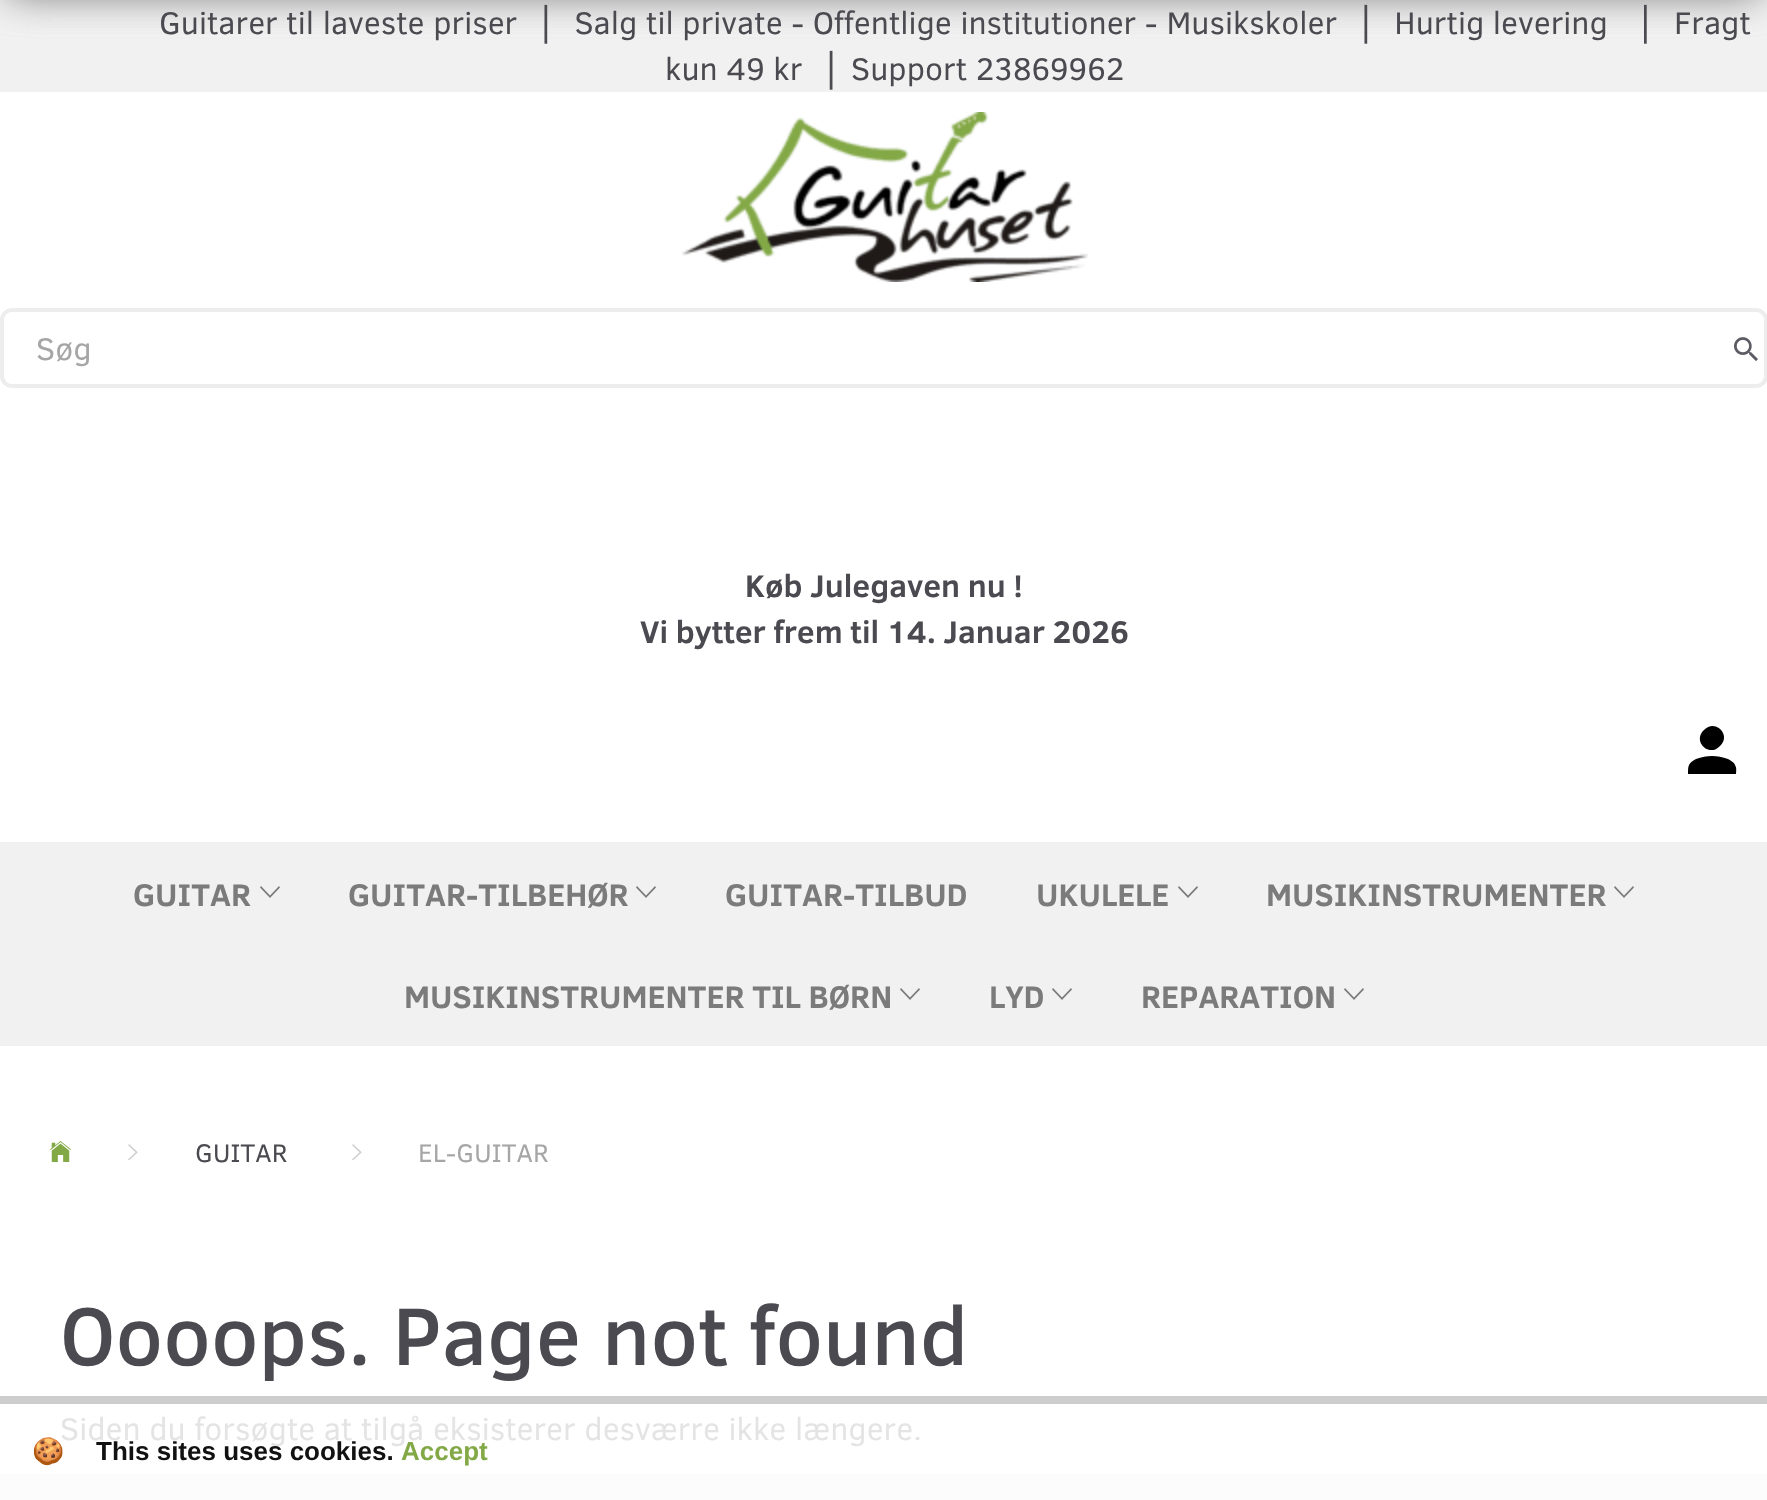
async function draw(canvas) {
	canvas.width = 1767;
	canvas.height = 1500;
	const c = canvas.getContext('2d');
	c.miterLimit = 4;
	c.fontKerning = 'none';
	async function loadImage(src) {
		const img = new Image();
		img.src = src;
		await img.decode();
		return img;
	}

	c.fillStyle = '#fff';
	c.fillRect(0, 0, 1767, 1500);
	c.fillStyle = '#f1f1f1';
	c.fillRect(0, 0, 1767, 92);
	c.fillStyle = '#949494';
	c.filter = 'blur(20px)';
	c.beginPath();
	c.rect(10, -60, 1748, 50);
	c.fill();
	c.filter = 'none';
	c.filter = 'blur(20px)';
	c.beginPath();
	c.rect(10, -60, 1748, 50);
	c.fill();
	c.filter = 'none';
	c.font = '32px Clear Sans';
	c.fillStyle = '#4b4a50';
	c.fillText('Guitarer til laveste priser  │  Salg til private - Offentlige institutioner - Musikskoler  │  Hurtig levering', 159, 34);
	c.fillText('│  Fragt', 1634, 34);
	c.fillText('kun 49 kr  │ Support 23869962', 665, 80);
	c.drawImage(await loadImage('img1.png'), 682, 112, 406, 170);
	c.beginPath();
	c.roundRect(2, 310, 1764, 76, 10);
	c.strokeStyle = '#ededed';
	c.lineWidth = 4;
	c.stroke();
	c.fillStyle = '#a6a6a6';
	c.fillText('Søg', 36, 360);
	c.drawImage(await loadImage('img2.png'), 1734, 337, 24, 24);
	c.font = 'bold 32px Clear Sans';
	c.fillStyle = '#4b4a50';
	c.fillText('Køb Julegaven nu !', 745, 597);
	c.fillText('Vi bytter frem til 14. Januar 2026', 640, 643);
	c.fillStyle = '#000';
	c.beginPath();
	c.moveTo(1720, 746);
	c.bezierCurveTo(1709, 758, 1692, 741, 1704, 730);
	c.bezierCurveTo(1715, 718, 1732, 735, 1720, 746);
	c.closePath();
	c.moveTo(1696, 759);
	c.bezierCurveTo(1707, 755, 1717, 755, 1728, 759);
	c.bezierCurveTo(1731, 761, 1734, 762, 1735, 765);
	c.bezierCurveTo(1737, 768, 1736, 771, 1736, 774);
	c.lineTo(1688, 774);
	c.bezierCurveTo(1688, 766, 1688, 763, 1696, 759);
	c.closePath();
	c.fill();
	c.fillStyle = '#f1f1f1';
	c.fillRect(0, 842, 1767, 204);
	c.fillStyle = '#7b7b7b';
	c.fillText('GUITAR', 133, 906);
	c.beginPath();
	c.moveTo(279, 886);
	c.lineTo(280, 887.5);
	c.lineTo(270, 898);
	c.lineTo(260, 887.5);
	c.lineTo(261, 886);
	c.lineTo(270, 895.5);
	c.closePath();
	c.fill();
	c.fillText('GUITAR-TILBEHØR', 348, 906);
	c.beginPath();
	c.moveTo(655, 886);
	c.lineTo(656, 887.5);
	c.lineTo(646, 898);
	c.lineTo(636, 887.5);
	c.lineTo(637, 886);
	c.lineTo(646, 895.5);
	c.closePath();
	c.fill();
	c.fillText('GUITAR-TILBUD', 725, 906);
	c.fillText('UKULELE', 1036, 906);
	c.beginPath();
	c.moveTo(1197, 886);
	c.lineTo(1198, 887.5);
	c.lineTo(1188, 898);
	c.lineTo(1178, 887.5);
	c.lineTo(1179, 886);
	c.lineTo(1188, 895.5);
	c.closePath();
	c.fill();
	c.fillText('MUSIKINSTRUMENTER', 1266, 906);
	c.beginPath();
	c.moveTo(1633, 886);
	c.lineTo(1634, 887.5);
	c.lineTo(1624, 898);
	c.lineTo(1614, 887.5);
	c.lineTo(1615, 886);
	c.lineTo(1624, 895.5);
	c.closePath();
	c.fill();
	c.fillText('MUSIKINSTRUMENTER TIL BØRN', 404, 1008);
	c.beginPath();
	c.moveTo(919, 988);
	c.lineTo(920, 989.5);
	c.lineTo(910, 1000);
	c.lineTo(900, 989.5);
	c.lineTo(901, 988);
	c.lineTo(910, 997.5);
	c.closePath();
	c.fill();
	c.fillText('LYD', 989, 1008);
	c.beginPath();
	c.moveTo(1071, 988);
	c.lineTo(1072, 989.5);
	c.lineTo(1062, 1000);
	c.lineTo(1052, 989.5);
	c.lineTo(1053, 988);
	c.lineTo(1062, 997.5);
	c.closePath();
	c.fill();
	c.fillText('REPARATION', 1141, 1008);
	c.beginPath();
	c.moveTo(1363, 988);
	c.lineTo(1364, 989.5);
	c.lineTo(1354, 1000);
	c.lineTo(1344, 989.5);
	c.lineTo(1345, 988);
	c.lineTo(1354, 997.5);
	c.closePath();
	c.fill();
	c.drawImage(await loadImage('img3.png'), 50, 1141, 21, 21);
	c.drawImage(await loadImage('img4.png'), 128, 1144, 10, 17);
	c.font = '26px Clear Sans';
	c.fillStyle = '#4b4a50';
	c.fillText('GUITAR', 195, 1162);
	c.drawImage(await loadImage('img4.png'), 352, 1144, 10, 17);
	c.fillStyle = '#a6a6a6';
	c.fillText('EL-GUITAR', 418, 1162);
	c.font = '500 83.25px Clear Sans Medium';
	c.fillStyle = '#4b4a50';
	c.fillText('Oooops. Page not found', 60, 1365);
	c.font = '32px Clear Sans';
	c.fillStyle = '#e4e4e5';
	c.fillText('Siden du forsøgte at tilgå eksisterer desværre ikke', 60, 1440);
	c.fillText('længere.', 795, 1440);
	c.fillStyle = '#fcfcfc';
	c.fillRect(0, 1474, 1767, 26);
	c.fillStyle = '#cdcdcd';
	c.fillRect(0, 1396, 1767, 8);
	c.font = 'bold 26px Noto Color Emoji';
	c.fillStyle = '#111';
	c.fillText('🍪', 32, 1460);
	c.font = 'bold 26px Liberation Sans';
	c.fillText('This sites uses cookies.', 96, 1460);
	c.fillStyle = '#83a846';
	c.fillText('Accept', 401, 1460);
}

draw(document.querySelector('canvas'));
